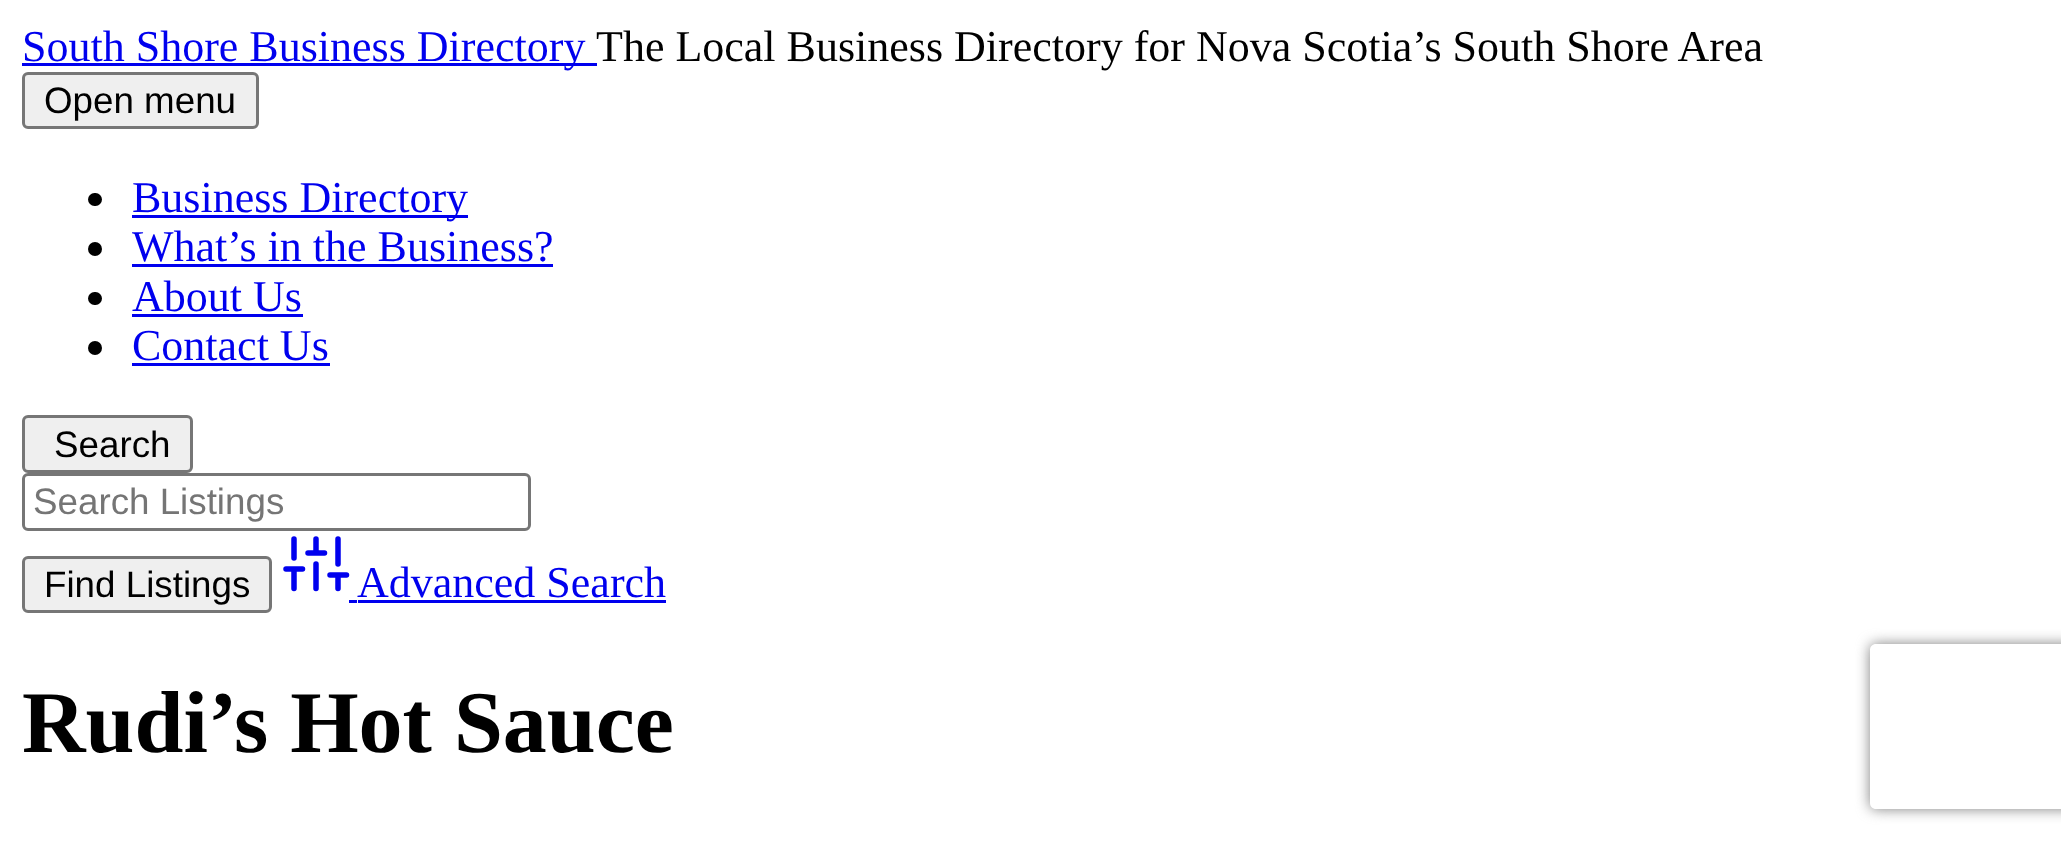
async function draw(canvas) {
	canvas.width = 2061;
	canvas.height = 845;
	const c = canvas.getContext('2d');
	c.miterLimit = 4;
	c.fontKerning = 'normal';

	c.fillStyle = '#fff';
	c.fillRect(0, 0, 2061, 845);
	c.fillStyle = '#00e';
	c.fillRect(22, 63, 575, 3);
	c.font = '44px Liberation Serif';
	c.fillText('South Shore Business Directory', 22, 61);
	c.fillStyle = '#000';
	c.fillText('The Local Business Directory for Nova Scotia’s South Shore Area', 596, 61);
	c.fillStyle = '#efefef';
	c.beginPath();
	c.roundRect(23.5, 73.5, 234, 54, 4.5);
	c.fill();
	c.strokeStyle = '#767676';
	c.lineWidth = 3;
	c.stroke();
	c.font = '36.75px Liberation Sans';
	c.fillStyle = '#000';
	c.fillText('Open menu', 44, 113);
	c.beginPath();
	c.roundRect(88, 193, 14, 13, 6.5);
	c.fill();
	c.fillStyle = '#00e';
	c.fillRect(132, 215, 336, 3);
	c.font = '44px Liberation Serif';
	c.fillText('Business Directory', 132, 212);
	c.fillStyle = '#000';
	c.beginPath();
	c.arc(95, 249, 7, 0, 2 * Math.PI);
	c.fill();
	c.fillStyle = '#00e';
	c.fillText('What’s in the Business?', 132, 261);
	c.fillRect(132, 264, 421, 3);
	c.fillStyle = '#000';
	c.beginPath();
	c.roundRect(88, 292, 14, 13, 6.5);
	c.fill();
	c.fillStyle = '#00e';
	c.fillText('About Us', 132, 311);
	c.fillRect(132, 314, 171, 3);
	c.fillStyle = '#000';
	c.beginPath();
	c.arc(95, 348, 7, 0, 2 * Math.PI);
	c.fill();
	c.fillStyle = '#00e';
	c.fillText('Contact Us', 132, 360);
	c.fillRect(132, 363, 198, 3);
	c.fillStyle = '#efefef';
	c.beginPath();
	c.roundRect(23.5, 416.5, 168, 55, 4.5);
	c.fill();
	c.stroke();
	c.font = '36.75px Liberation Sans';
	c.fillStyle = '#000';
	c.fillText('Search', 54, 457);
	c.beginPath();
	c.roundRect(23.5, 474.5, 506, 55, 4.5);
	c.stroke();
	c.fillStyle = '#757575';
	c.fillText('Search Listings', 33, 514);
	c.fillStyle = '#efefef';
	c.beginPath();
	c.roundRect(23.5, 557.5, 247, 54, 4.5);
	c.fill();
	c.stroke();
	c.fillStyle = '#000';
	c.fillText('Find Listings', 44, 597);
	c.font = '44px Liberation Serif';
	c.fillStyle = '#00e';
	c.fillText('Advanced Search', 357, 597);
	c.fillRect(349, 600, 8, 3);
	c.fillRect(358, 600, 308, 3);
	c.beginPath();
	c.moveTo(294, 588.5);
	c.lineTo(294, 569);
	c.moveTo(294, 558);
	c.lineTo(294, 539);
	c.moveTo(316, 588.5);
	c.lineTo(316, 564);
	c.moveTo(316, 553);
	c.lineTo(316, 539);
	c.moveTo(338, 588.5);
	c.lineTo(338, 575);
	c.moveTo(338, 564);
	c.lineTo(338, 539);
	c.moveTo(286, 569);
	c.lineTo(302.5, 569);
	c.moveTo(308, 553);
	c.lineTo(324.5, 553);
	c.moveTo(330, 575);
	c.lineTo(346.5, 575);
	c.strokeStyle = '#00e';
	c.lineWidth = 5.5;
	c.lineCap = 'round';
	c.lineJoin = 'round';
	c.stroke();
	c.font = 'bold 88px Liberation Serif';
	c.fillStyle = '#000';
	c.fillText('Rudi’s Hot Sauce', 22, 752);
	c.save();
	c.beginPath();
	c.moveTo(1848, 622);
	c.lineTo(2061, 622);
	c.lineTo(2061, 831);
	c.lineTo(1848, 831);
	c.closePath();
	c.moveTo(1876, 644);
	c.lineTo(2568, 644);
	c.bezierCurveTo(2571.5, 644, 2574, 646.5, 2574, 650);
	c.lineTo(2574, 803);
	c.bezierCurveTo(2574, 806.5, 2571.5, 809, 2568, 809);
	c.lineTo(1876, 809);
	c.bezierCurveTo(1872.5, 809, 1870, 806.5, 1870, 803);
	c.lineTo(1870, 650);
	c.bezierCurveTo(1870, 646.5, 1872.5, 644, 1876, 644);
	c.closePath();
	c.clip('evenodd');
	c.fillStyle = '#808080';
	c.filter = 'blur(7px)';
	c.beginPath();
	c.roundRect(1870, 644, 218, 165, 6);
	c.fill();
	c.filter = 'none';
	c.restore();
}

draw(document.querySelector('canvas'));
